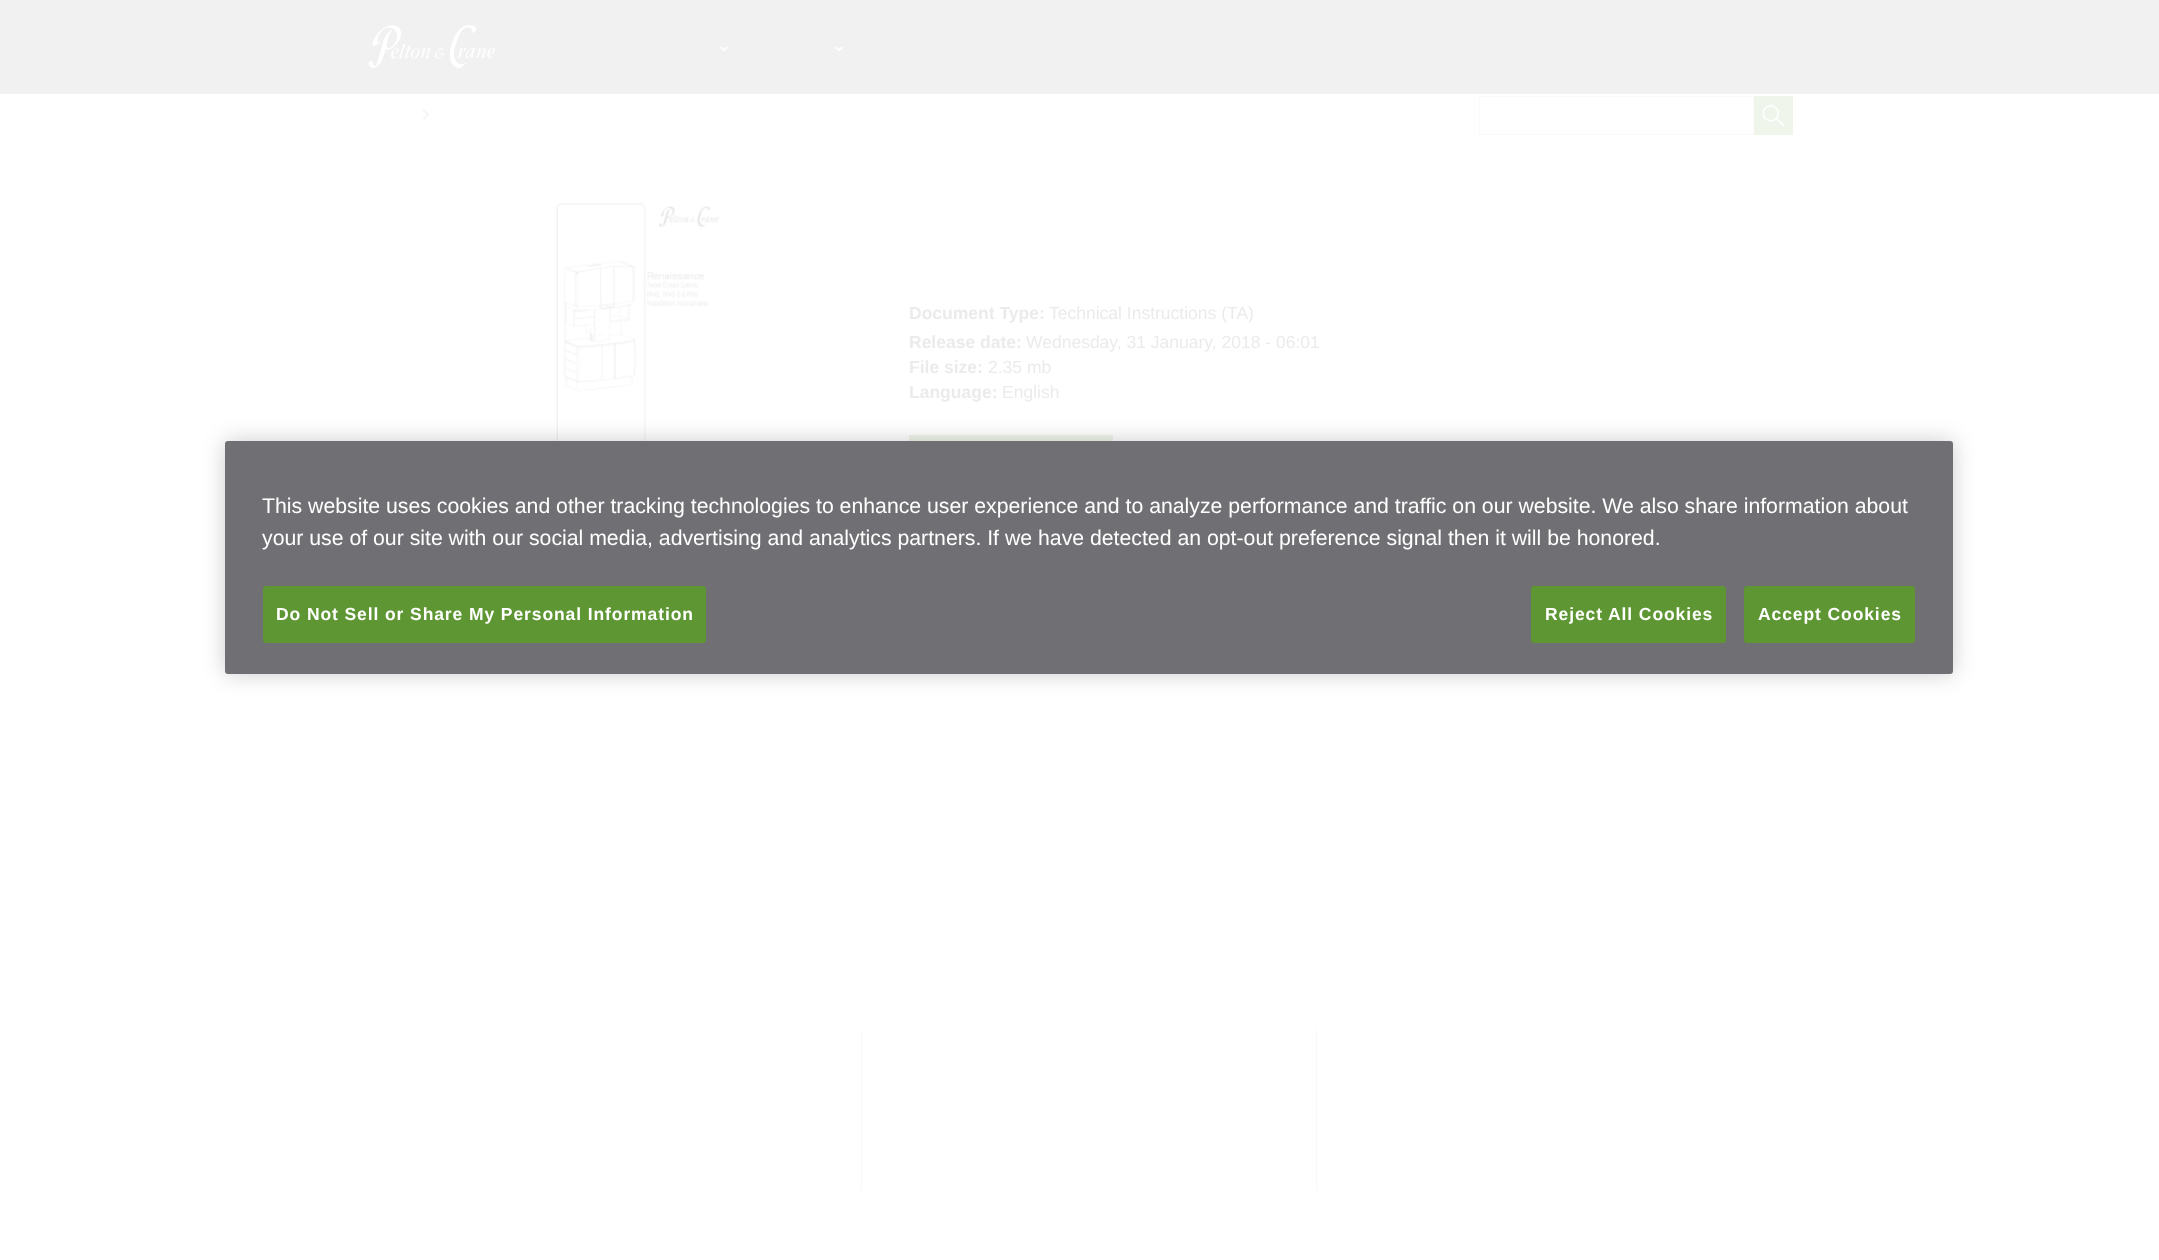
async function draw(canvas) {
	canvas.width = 2159;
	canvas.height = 1260;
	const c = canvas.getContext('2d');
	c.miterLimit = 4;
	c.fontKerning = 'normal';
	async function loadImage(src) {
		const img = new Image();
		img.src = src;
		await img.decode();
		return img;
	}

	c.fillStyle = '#fff';
	c.fillRect(0, 0, 2159, 1260);
	c.fillStyle = '#f1f1f1';
	c.fillRect(0, 0, 2159, 94);
	c.drawImage(await loadImage('img1.png'), 368, 25, 127, 43);
	c.drawImage(await loadImage('img2.png'), 720, 46, 8, 6);
	c.drawImage(await loadImage('img2.png'), 835, 46, 8, 6);
	c.drawImage(await loadImage('img3.png'), 422, 108, 8, 13);
	c.strokeStyle = '#fafafa';
	c.strokeRect(1479.5, 96.5, 274, 38);
	c.fillStyle = '#eff5eb';
	c.fillRect(1754, 96, 39, 39);
	c.beginPath();
	c.moveTo(1765.5, 108);
	c.bezierCurveTo(1772.5, 101, 1783, 111.5, 1776, 118.5);
	c.bezierCurveTo(1769, 125.5, 1758.5, 115, 1765.5, 108);
	c.closePath();
	c.strokeStyle = '#fff';
	c.lineWidth = 1.6;
	c.stroke();
	c.beginPath();
	c.moveTo(1783.5, 125.5);
	c.lineTo(1776.5, 118.5);
	c.lineCap = 'round';
	c.stroke();
	c.drawImage(await loadImage('img4.png'), 552, 201, 173, 240);
	c.font = 'bold 17.5px Liberation Sans';
	c.fillStyle = '#ebebeb';
	c.fillText('Document Type:', 909, 319);
	c.font = '17.5px Liberation Sans';
	c.fillText('Technical Instructions (TA)', 1049, 319);
	c.font = 'bold 17.5px Liberation Sans';
	c.fillText('Release date:', 909, 348);
	c.font = '17.5px Liberation Sans';
	c.fillText('Wednesday, 31 January, 2018 - 06:01', 1026, 348);
	c.font = 'bold 17.5px Liberation Sans';
	c.fillText('File size:', 909, 373);
	c.font = '17.5px Liberation Sans';
	c.fillText('2.35 mb', 988, 373);
	c.font = 'bold 17.5px Liberation Sans';
	c.fillText('Language:', 909, 398);
	c.font = '17.5px Liberation Sans';
	c.fillText('English', 1002, 398);
	for (const [x, y, w, h, color] of [
		[909, 435, 204, 6, '#eff5eb'],
		[861, 1029, 1, 162, '#f9f9f9'],
		[1316, 1029, 1, 162, '#f9f9f9'],
	]) {
		c.fillStyle = color;
		c.fillRect(x, y, w, h);
	}
	c.fillStyle = '#00000033';
	c.filter = 'blur(11px)';
	c.beginPath();
	c.roundRect(225, 441, 1728, 233, 3);
	c.fill();
	c.filter = 'none';
	c.fillStyle = '#706f73';
	c.beginPath();
	c.roundRect(225, 441, 1728, 233, 3);
	c.fill();
	c.font = '21.25px Liberation Sans';
	c.fillStyle = '#fff';
	c.fillText('This website uses cookies and other tracking technologies to enhance user experience and to analyze performance and traffic on our website. We also share information about', 262, 513);
	c.fillText('your use of our site with our social media, advertising and analytics partners. If we have detected an opt-out preference signal then it will be honored.', 262, 545);
	c.fillStyle = '#5d9632';
	c.beginPath();
	c.roundRect(263.5, 586.5, 442, 56, 2);
	c.fill();
	c.strokeStyle = '#5d9632';
	c.lineWidth = 1;
	c.stroke();
	c.letterSpacing = '0.9px';
	c.font = 'bold 17.5px Liberation Sans';
	c.fillStyle = '#fff';
	c.fillText('Do Not Sell or Share My Personal Information', 276, 620);
	c.fillStyle = '#5d9632';
	c.beginPath();
	c.roundRect(1531.5, 586.5, 194, 56, 2);
	c.fill();
	c.stroke();
	c.fillStyle = '#fff';
	c.fillText('Reject All Cookies', 1545, 620);
	c.fillStyle = '#5d9632';
	c.beginPath();
	c.roundRect(1744.5, 586.5, 170, 56, 2);
	c.fill();
	c.stroke();
	c.fillStyle = '#fff';
	c.fillText('Accept Cookies', 1758, 620);
}

draw(document.querySelector('canvas'));
